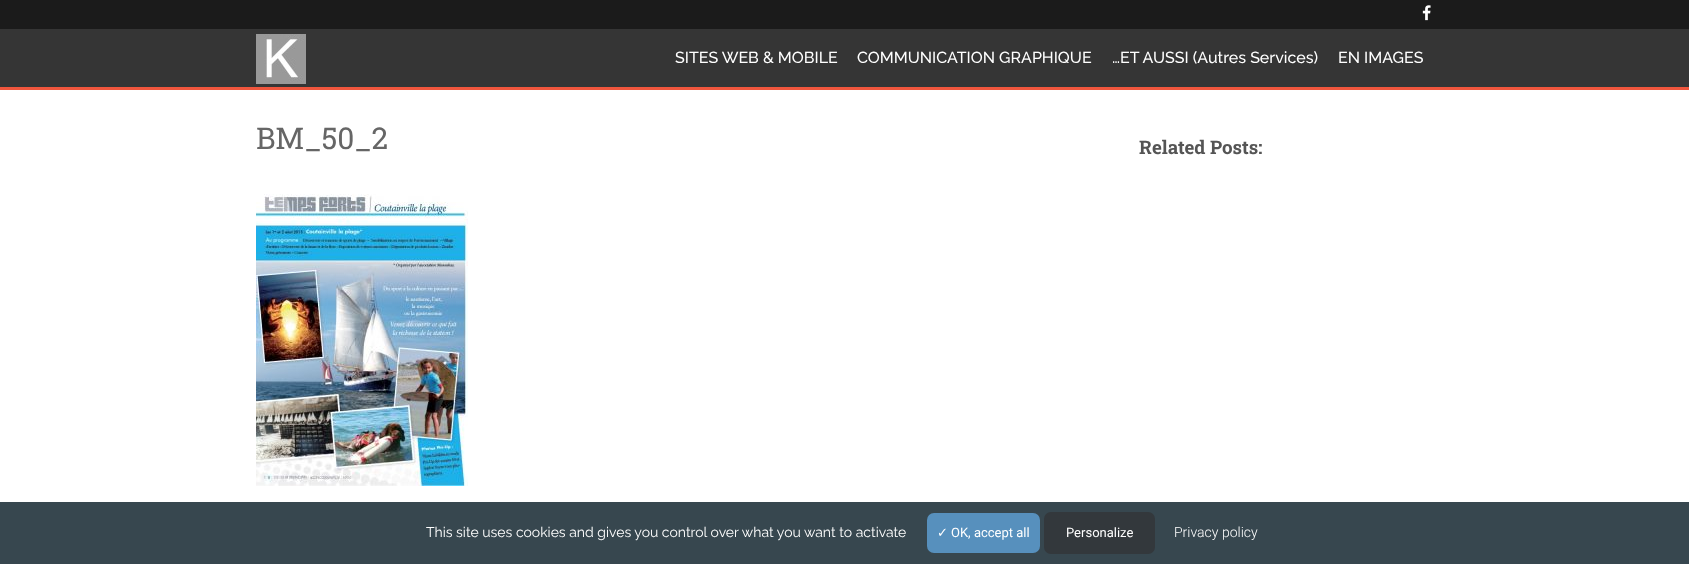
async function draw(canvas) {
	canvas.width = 1689;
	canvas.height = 564;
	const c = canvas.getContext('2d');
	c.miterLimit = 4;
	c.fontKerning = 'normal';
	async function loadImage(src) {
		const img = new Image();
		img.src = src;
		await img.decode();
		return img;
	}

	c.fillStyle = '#fff';
	c.fillRect(0, 0, 1689, 564);
	for (const [x, y, w, h, color] of [
		[0, 29, 1689, 58, '#353535'],
		[0, 87, 1689, 3, '#f0563d'],
		[0, 0, 1689, 29, '#1b1b1b'],
	]) {
		c.fillStyle = color;
		c.fillRect(x, y, w, h);
	}
	c.drawImage(await loadImage('img1.png'), 1422, 5, 9, 16);
	c.drawImage(await loadImage('img2.png'), 256, 34, 50, 50);
	c.font = '100 16px Raleway';
	c.fillStyle = '#fff';
	for (const [text, x, y] of [
		['SITES WEB & MOBILE', 675, 63],
		['COMMUNICATION GRAPHIQUE', 857, 63],
		['…ET AUSSI (Autres Services)', 1112, 63],
		['EN IMAGES', 1338, 63],
	]) {
		c.fillText(text, x, y);
	}
	c.font = '30px Roboto Slab';
	c.fillStyle = '#666';
	c.fillText('BM_50_2', 256, 149);
	c.drawImage(await loadImage('img3.png'), 256, 194, 212, 292);
	c.font = 'bold 18.75px Roboto Slab';
	c.fillStyle = '#555';
	c.fillText('Related Posts:', 1139, 154);
	c.fillStyle = '#37474f';
	c.fillRect(0, 502, 1689, 62);
	c.font = '100 14px "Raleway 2"';
	c.fillStyle = '#fff';
	c.fillText('This site uses cookies and gives you control over what you want to activate', 426, 537);
	c.fillStyle = '#5790bd';
	c.beginPath();
	c.roundRect(927, 513, 113, 40, 7);
	c.fill();
	c.font = '13px DejaVu Sans';
	c.fillStyle = '#fff';
	c.fillText('✓', 937, 537);
	c.font = '13px Roboto';
	c.fillText('OK, accept all', 951, 537);
	c.fillStyle = '#33383c';
	c.beginPath();
	c.roundRect(1044, 512, 111, 42, 7);
	c.fill();
	c.fillStyle = '#fff';
	c.fillText('Personalize', 1066, 537);
	c.font = '300 14px Roboto';
	c.fillText('Privacy policy', 1174, 537);
}

draw(document.querySelector('canvas'));
